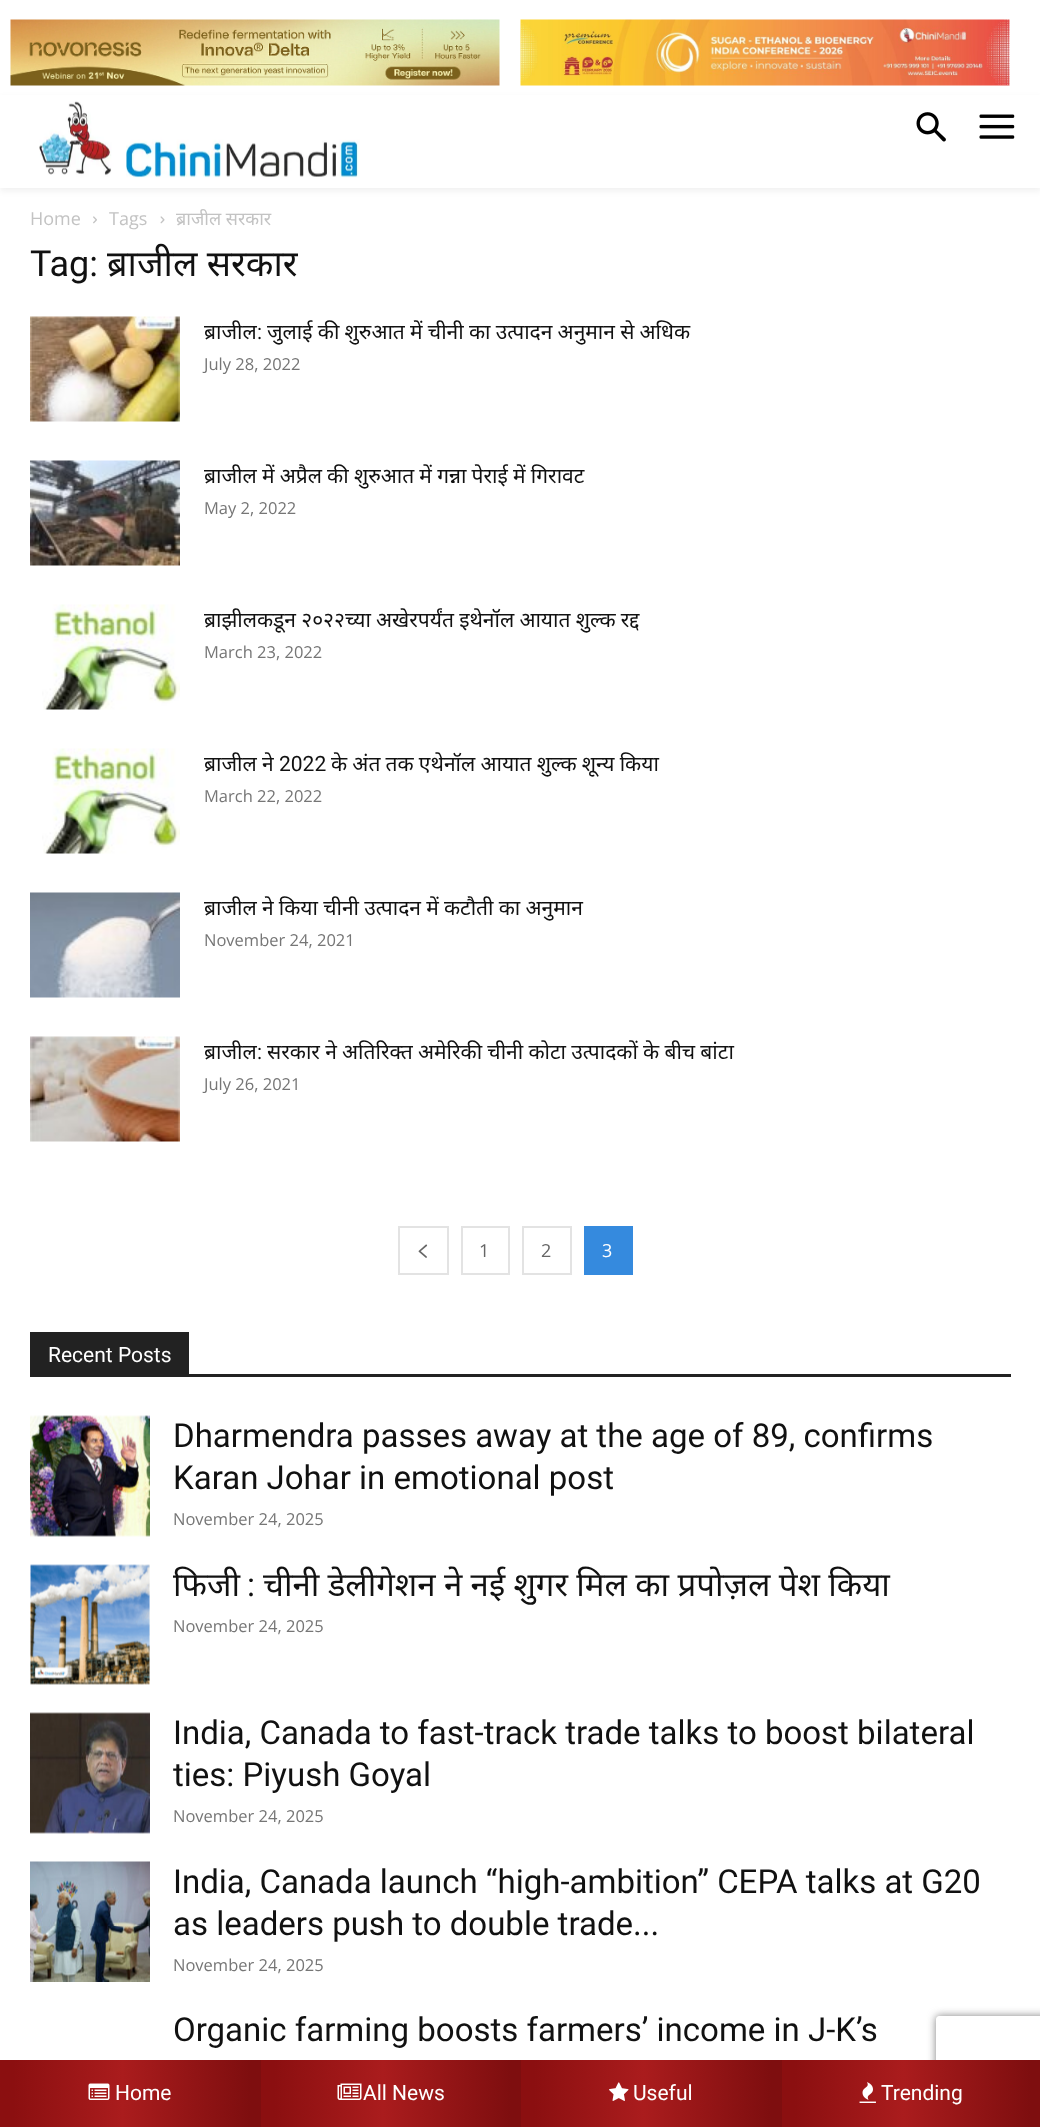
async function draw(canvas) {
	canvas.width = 1040;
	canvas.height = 2127;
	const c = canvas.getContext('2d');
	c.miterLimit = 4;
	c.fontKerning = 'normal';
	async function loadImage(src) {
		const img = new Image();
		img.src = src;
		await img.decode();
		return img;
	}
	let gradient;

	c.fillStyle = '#fff';
	c.fillRect(0, 0, 1040, 2127);
	c.drawImage(await loadImage('img1.png'), 10, 19, 490, 67);
	c.drawImage(await loadImage('img2.png'), 520, 19, 490, 67);
	c.drawImage(await loadImage('img3.png'), 39, 101, 321, 77);
	c.drawImage(await loadImage('img4.png'), 916, 112, 30, 30);
	c.drawImage(await loadImage('img5.png'), 979, 114, 36, 25);
	c.save();
	c.beginPath();
	c.moveTo(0, 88);
	c.lineTo(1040, 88);
	c.lineTo(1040, 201);
	c.lineTo(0, 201);
	c.closePath();
	c.moveTo(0, 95);
	c.lineTo(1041, 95);
	c.lineTo(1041, 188);
	c.lineTo(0, 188);
	c.closePath();
	c.clip('evenodd');
	c.fillStyle = '#0000000f';
	c.filter = 'blur(3px)';
	c.beginPath();
	c.rect(0, 98, 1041, 93);
	c.fill();
	c.filter = 'none';
	c.restore();
	c.font = '18px Open Sans';
	c.fillStyle = '#c3c3c3';
	c.fillText('Home', 30, 225);
	c.drawImage(await loadImage('img6.png'), 93, 216, 4, 8);
	c.fillText('Tags', 109, 225);
	c.drawImage(await loadImage('img7.png'), 160, 216, 5, 8);
	c.font = '18px Noto Sans';
	c.fillText('ब्राजील सरकार', 176, 225);
	c.font = '36px Roboto';
	c.fillStyle = '#111';
	c.fillText('Tag:', 30, 276);
	c.font = '36px Noto Sans';
	c.fillText('ब्राजील सरकार', 107, 276);
	c.drawImage(await loadImage('img8.png'), 30, 316, 150, 106);
	c.font = '21px Noto Sans';
	c.fillText('ब्राजील', 204, 339);
	c.font = '21px Roboto';
	c.fillText(':', 257, 339);
	c.wordSpacing = '-0.25px';
	c.font = '21px Noto Sans';
	c.fillText('जुलाई की शुरुआत में चीनी का उत्पादन अनुमान से अधिक', 267, 339);
	c.wordSpacing = '0px';
	c.font = '16.5px Open Sans';
	c.fillStyle = '#767676';
	c.fillText('July 28, 2022', 204, 370);
	c.drawImage(await loadImage('img9.png'), 30, 460, 150, 106);
	c.wordSpacing = '-0.25px';
	c.font = '21px Noto Sans';
	c.fillStyle = '#111';
	c.fillText('ब्राजील में अप्रैल की शुरुआत में गन्ना पेराई में गिरावट', 204, 483);
	c.wordSpacing = '0px';
	c.font = '16.5px Open Sans';
	c.fillStyle = '#767676';
	c.fillText('May 2, 2022', 204, 514);
	c.drawImage(await loadImage('img10.png'), 42, 604, 138, 106);
	c.wordSpacing = '-0.25px';
	c.font = '21px Noto Sans';
	c.fillStyle = '#111';
	c.fillText('ब्राझीलकडून २०२२च्या अखेरपर्यंत इथेनॉल आयात शुल्क रद्द', 204, 627);
	c.wordSpacing = '0px';
	c.font = '16.5px Open Sans';
	c.fillStyle = '#767676';
	c.fillText('March 23, 2022', 204, 658);
	c.drawImage(await loadImage('img10.png'), 42, 748, 138, 106);
	c.wordSpacing = '-0.25px';
	c.font = '21px Noto Sans';
	c.fillStyle = '#111';
	c.fillText('ब्राजील ने', 204, 771);
	c.wordSpacing = '0px';
	c.font = '21px Roboto';
	c.fillText('2022', 279, 771);
	c.wordSpacing = '-0.25px';
	c.font = '21px Noto Sans';
	c.fillText('के अंत तक एथेनॉल आयात शुल्क शून्य किया', 331, 771);
	c.wordSpacing = '0px';
	c.font = '16.5px Open Sans';
	c.fillStyle = '#767676';
	c.fillText('March 22, 2022', 204, 802);
	c.drawImage(await loadImage('img11.png'), 30, 892, 150, 106);
	c.wordSpacing = '-0.25px';
	c.font = '21px Noto Sans';
	c.fillStyle = '#111';
	c.fillText('ब्राजील ने किया चीनी उत्पादन में कटौती का अनुमान', 204, 915);
	c.wordSpacing = '0px';
	c.font = '16.5px Open Sans';
	c.fillStyle = '#767676';
	c.fillText('November 24, 2021', 204, 946);
	c.drawImage(await loadImage('img12.png'), 30, 1036, 150, 106);
	c.font = '21px Noto Sans';
	c.fillStyle = '#111';
	c.fillText('ब्राजील', 204, 1059);
	c.font = '21px Roboto';
	c.fillText(':', 257, 1059);
	c.wordSpacing = '-0.25px';
	c.font = '21px Noto Sans';
	c.fillText('सरकार ने अतिरिक्त अमेरिकी चीनी कोटा उत्पादकों के बीच बांटा', 267, 1059);
	c.wordSpacing = '0px';
	c.font = '16.5px Open Sans';
	c.fillStyle = '#767676';
	c.fillText('July 26, 2021', 204, 1090);
	c.strokeStyle = '#e3e3e3';
	c.lineWidth = 2;
	c.strokeRect(399, 1227, 49, 47);
	c.drawImage(await loadImage('img13.png'), 418, 1244, 10, 14);
	c.strokeRect(462, 1227, 47, 47);
	c.font = '18px Open Sans';
	c.fillStyle = '#666';
	c.fillText('1', 479, 1257);
	c.strokeRect(523, 1227, 48, 47);
	c.fillText('2', 541, 1257);
	c.fillStyle = '#358ade';
	c.fillRect(584, 1226, 49, 49);
	c.fillStyle = '#fff';
	c.fillText('3', 602, 1257);
	c.fillStyle = '#222';
	c.fillRect(30, 1374, 981, 3);
	c.fillRect(30, 1332, 159, 42);
	c.font = '21px Roboto';
	c.fillStyle = '#fff';
	c.fillText('Recent Posts', 48, 1362);
	c.drawImage(await loadImage('img14.png'), 30, 1415, 120, 122);
	c.font = '33px Roboto';
	c.fillStyle = '#111';
	c.fillText('Dharmendra passes away at the age of 89, confirms', 173, 1447);
	c.fillText('Karan Johar in emotional post', 173, 1489);
	c.font = '16.5px Open Sans';
	c.fillStyle = '#767676';
	c.fillText('November 24, 2025', 173, 1525);
	c.drawImage(await loadImage('img15.png'), 30, 1564, 120, 121);
	c.font = '33px Noto Sans';
	c.fillStyle = '#111';
	c.fillText('फिजी', 173, 1596);
	c.font = '33px Roboto';
	c.fillText(':', 247, 1596);
	c.wordSpacing = '-0.25px';
	c.font = '33px Noto Sans';
	c.fillText('चीनी डेलीगेशन ने नई शुगर मिल का प्रपोज़ल पेश किया', 263, 1596);
	c.wordSpacing = '0px';
	c.font = '16.5px Open Sans';
	c.fillStyle = '#767676';
	c.fillText('November 24, 2025', 173, 1632);
	c.drawImage(await loadImage('img16.png'), 30, 1712, 120, 122);
	c.font = '33px Roboto';
	c.fillStyle = '#111';
	c.fillText('India, Canada to fast-track trade talks to boost bilateral', 173, 1744);
	c.fillText('ties: Piyush Goyal', 173, 1786);
	c.font = '16.5px Open Sans';
	c.fillStyle = '#767676';
	c.fillText('November 24, 2025', 173, 1822);
	c.drawImage(await loadImage('img17.png'), 30, 1861, 120, 121);
	c.font = '33px Roboto';
	c.fillStyle = '#111';
	c.fillText('India, Canada launch “high-ambition” CEPA talks at G20', 173, 1893);
	c.fillText('as leaders push to double trade...', 173, 1935);
	c.font = '16.5px Open Sans';
	c.fillStyle = '#767676';
	c.fillText('November 24, 2025', 173, 1971);
	c.font = '33px Roboto';
	c.fillStyle = '#111';
	c.fillText('Organic farming boosts farmers’ income in J-K’s', 173, 2041);
	gradient = c.createLinearGradient(0, 2093, 261, 2093);
	gradient.addColorStop(0.05, '#8b0f10');
	gradient.addColorStop(0.47, '#aa1c1d');
	gradient.addColorStop(0.96, '#7e0e0f');
	c.fillStyle = gradient;
	c.fillRect(0, 2060, 261, 67);
	c.drawImage(await loadImage('img18.png'), 88, 2083, 22, 17);
	c.font = '21px Roboto';
	c.fillStyle = '#fff';
	c.fillText('Home', 115, 2100);
	gradient = c.createLinearGradient(261, 2093, 521, 2093);
	gradient.addColorStop(0.05, '#8b0f10');
	gradient.addColorStop(0.47, '#aa1c1d');
	gradient.addColorStop(0.96, '#7e0e0f');
	c.fillStyle = gradient;
	c.fillRect(261, 2060, 260, 67);
	c.drawImage(await loadImage('img19.png'), 337, 2083, 25, 17);
	c.fillStyle = '#fff';
	c.fillText('All News', 363, 2100);
	gradient = c.createLinearGradient(521, 2093, 782, 2093);
	gradient.addColorStop(0.05, '#8b0f10');
	gradient.addColorStop(0.47, '#aa1c1d');
	gradient.addColorStop(0.96, '#7e0e0f');
	c.fillStyle = gradient;
	c.fillRect(521, 2060, 261, 67);
	c.drawImage(await loadImage('img20.png'), 609, 2082, 20, 19);
	c.fillStyle = '#fff';
	c.fillText('Useful', 633, 2100);
	c.save();
	c.beginPath();
	c.moveTo(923, 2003);
	c.lineTo(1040, 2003);
	c.lineTo(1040, 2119);
	c.lineTo(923, 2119);
	c.closePath();
	c.moveTo(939, 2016);
	c.lineTo(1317, 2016);
	c.bezierCurveTo(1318.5, 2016, 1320, 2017.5, 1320, 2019);
	c.lineTo(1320, 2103);
	c.bezierCurveTo(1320, 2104.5, 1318.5, 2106, 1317, 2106);
	c.lineTo(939, 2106);
	c.bezierCurveTo(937.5, 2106, 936, 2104.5, 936, 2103);
	c.lineTo(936, 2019);
	c.bezierCurveTo(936, 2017.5, 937.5, 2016, 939, 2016);
	c.closePath();
	c.clip('evenodd');
	c.fillStyle = '#808080';
	c.filter = 'blur(4px)';
	c.beginPath();
	c.roundRect(936, 2016, 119, 90, 3);
	c.fill();
	c.filter = 'none';
	c.restore();
	gradient = c.createLinearGradient(782, 2093, 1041, 2093);
	gradient.addColorStop(0.05, '#8b0f10');
	gradient.addColorStop(0.47, '#aa1c1d');
	gradient.addColorStop(0.96, '#7e0e0f');
	c.fillStyle = gradient;
	c.fillRect(782, 2060, 258, 67);
	c.drawImage(await loadImage('img21.png'), 859, 2082, 17, 21);
	c.fillStyle = '#fff';
	c.fillText('Trending', 881, 2100);
}

draw(document.querySelector('canvas'));
